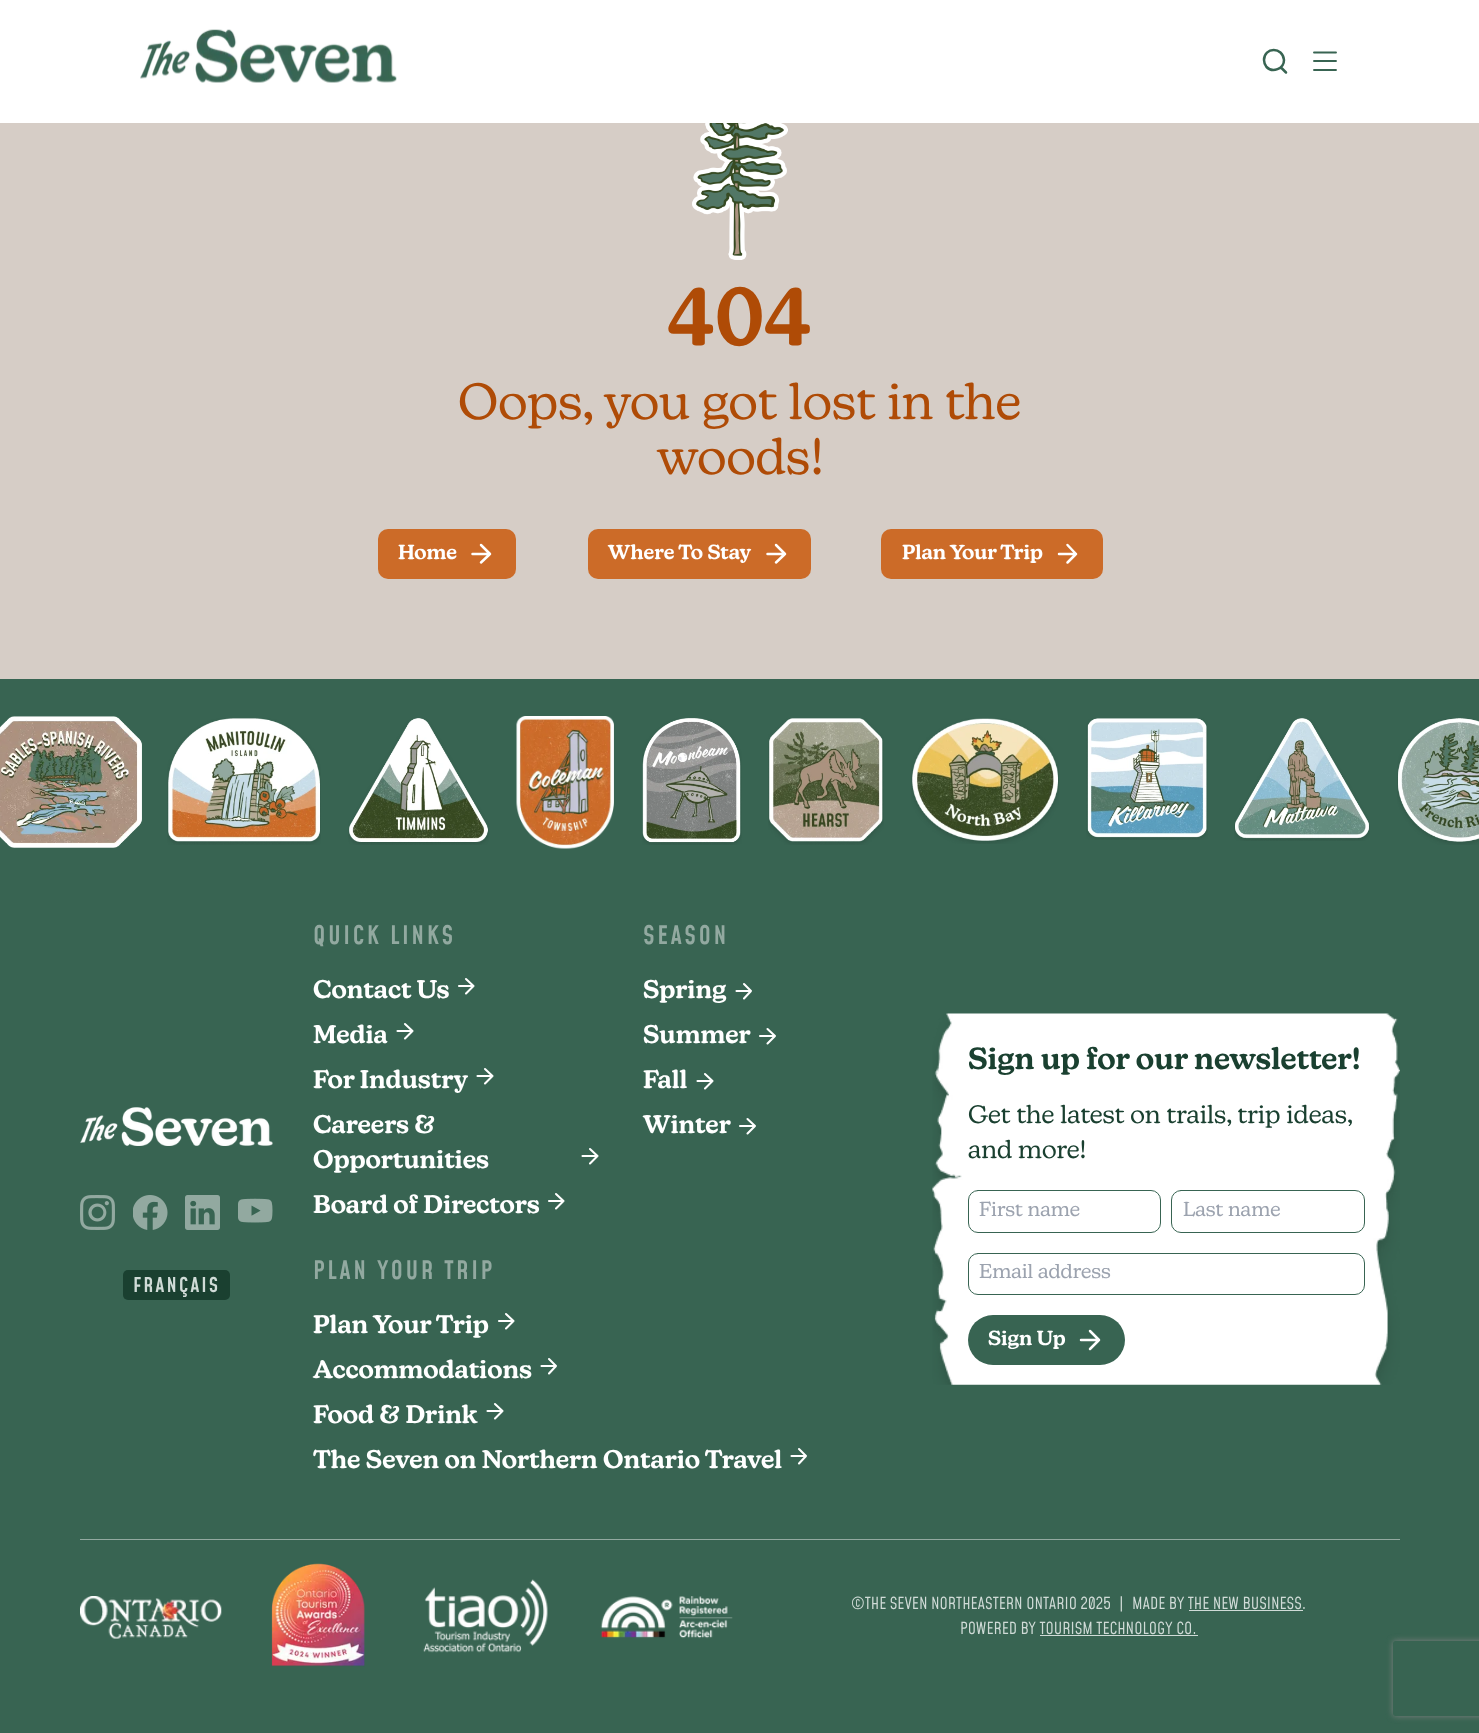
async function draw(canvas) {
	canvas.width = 1479;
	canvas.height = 1733;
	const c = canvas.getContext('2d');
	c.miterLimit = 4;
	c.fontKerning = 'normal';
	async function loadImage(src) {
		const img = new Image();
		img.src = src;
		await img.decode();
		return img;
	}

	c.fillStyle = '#d6cdc6';
	c.fillRect(0, 0, 1479, 1733);
	c.fillStyle = '#fff';
	c.fillRect(0, 0, 1479, 123);
	c.drawImage(await loadImage('img1.png'), 140, 29, 257, 54);
	c.beginPath();
	c.moveTo(1281, 67.5);
	c.lineTo(1286, 72.5);
	c.moveTo(1264, 60);
	c.bezierCurveTo(1264, 62.5, 1265, 65, 1266.5, 67);
	c.bezierCurveTo(1272.5, 73, 1284, 69, 1284, 60);
	c.bezierCurveTo(1283, 46.5, 1264, 47, 1264, 60);
	c.closePath();
	c.strokeStyle = '#386452';
	c.lineWidth = 2.5;
	c.lineCap = 'round';
	c.lineJoin = 'round';
	c.stroke();
	c.beginPath();
	c.moveTo(1314, 52.5);
	c.lineTo(1336, 52.5);
	c.moveTo(1314, 61);
	c.lineTo(1336, 61);
	c.moveTo(1314, 70);
	c.lineTo(1336, 70);
	c.lineWidth = 1.9;
	c.stroke();
	c.drawImage(await loadImage('img2.png'), 692, 123, 96, 137);
	c.font = '600 80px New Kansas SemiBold';
	c.fillStyle = '#af4b06';
	c.fillText('404', 668, 345);
	c.font = '50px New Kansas';
	c.fillText('Oops, you got lost in the', 458, 419);
	c.fillText('woods!', 657, 474);
	c.fillStyle = '#cc6b28';
	c.beginPath();
	c.roundRect(378, 529, 138, 50, 10);
	c.fill();
	c.font = '600 20px New Kansas SemiBold';
	c.fillStyle = '#fff';
	c.fillText('Home', 398, 559);
	c.beginPath();
	c.moveTo(472.5, 554);
	c.lineTo(490, 554);
	c.moveTo(481, 545);
	c.lineTo(490, 554);
	c.lineTo(481, 562.5);
	c.strokeStyle = '#fff';
	c.lineWidth = 2.5;
	c.stroke();
	c.fillStyle = '#cc6b28';
	c.beginPath();
	c.roundRect(588, 529, 223, 50, 10);
	c.fill();
	c.fillStyle = '#fff';
	c.fillText('Where To Stay', 608, 559);
	c.beginPath();
	c.moveTo(767.5, 554);
	c.lineTo(785, 554);
	c.moveTo(776, 545);
	c.lineTo(785, 554);
	c.lineTo(776, 562.5);
	c.stroke();
	c.fillStyle = '#cc6b28';
	c.beginPath();
	c.roundRect(881, 529, 222, 50, 10);
	c.fill();
	c.fillStyle = '#fff';
	c.fillText('Plan Your Trip', 902, 559);
	c.beginPath();
	c.moveTo(1059, 554);
	c.lineTo(1076, 554);
	c.moveTo(1067.5, 545);
	c.lineTo(1076, 554);
	c.lineTo(1067.5, 562.5);
	c.stroke();
	c.fillStyle = '#386452';
	c.fillRect(0, 679, 1479, 1054);
	c.drawImage(await loadImage('img3.png'), 0, 716, 142, 132);
	c.drawImage(await loadImage('img4.png'), 167, 718, 154, 127);
	c.drawImage(await loadImage('img5.png'), 348, 718, 141, 127);
	c.drawImage(await loadImage('img6.png'), 516, 716, 98, 133);
	c.drawImage(await loadImage('img7.png'), 642, 718, 100, 127);
	c.drawImage(await loadImage('img8.png'), 768, 718, 116, 127);
	c.drawImage(await loadImage('img9.png'), 911, 718, 148, 126);
	c.drawImage(await loadImage('img10.png'), 1086, 718, 122, 122);
	c.drawImage(await loadImage('img11.png'), 1234, 718, 136, 123);
	c.drawImage(await loadImage('img12.png'), 1397, 718, 82, 127);
	c.drawImage(await loadImage('img13.png'), 80, 1107, 193, 39);
	c.drawImage(await loadImage('img14.png'), 80, 1195, 35, 35);
	c.drawImage(await loadImage('img15.png'), 133, 1195, 35, 35);
	c.drawImage(await loadImage('img16.png'), 185, 1195, 35, 35);
	c.drawImage(await loadImage('img17.png'), 238, 1198, 35, 25);
	c.fillStyle = '#1a4030';
	c.beginPath();
	c.roundRect(123, 1270, 107, 30, 5);
	c.fill();
	c.letterSpacing = '2px';
	c.font = '600 20px Mohave';
	c.fillStyle = '#d0dbd7';
	c.fillText('FRANÇAIS', 133, 1292);
	c.letterSpacing = '2.5px';
	c.font = '600 25px Mohave';
	c.fillStyle = '#92a9a0';
	c.fillText('QUICK LINKS', 313, 944);
	c.letterSpacing = '0px';
	c.font = '600 25px New Kansas SemiBold';
	c.fillStyle = '#fff';
	c.fillText('Contact Us', 313, 998);
	c.beginPath();
	c.moveTo(459, 986);
	c.lineTo(473.5, 986);
	c.moveTo(466, 979);
	c.lineTo(473.5, 986);
	c.lineTo(466, 993.5);
	c.lineWidth = 2.1;
	c.stroke();
	c.fillText('Media', 313, 1043);
	c.beginPath();
	c.moveTo(397.5, 1031);
	c.lineTo(412.5, 1031);
	c.moveTo(405, 1024);
	c.lineTo(412.5, 1031);
	c.lineTo(405, 1038.5);
	c.stroke();
	c.fillText('For Industry', 313, 1088);
	c.beginPath();
	c.moveTo(477.5, 1076);
	c.lineTo(492.5, 1076);
	c.moveTo(485, 1069);
	c.lineTo(492.5, 1076);
	c.lineTo(485, 1083.5);
	c.stroke();
	c.fillText('Careers &', 313, 1133);
	c.fillText('Opportunities', 313, 1168);
	c.beginPath();
	c.moveTo(582.5, 1156);
	c.lineTo(597.5, 1156);
	c.moveTo(590, 1149);
	c.lineTo(597.5, 1156);
	c.lineTo(590, 1163.5);
	c.moveTo(549, 1201);
	c.lineTo(563.5, 1201);
	c.moveTo(556, 1194);
	c.lineTo(563.5, 1201);
	c.lineTo(556, 1208.5);
	c.stroke();
	c.fillText('Board of Directors', 313, 1213);
	c.letterSpacing = '2.5px';
	c.font = '600 25px Mohave';
	c.fillStyle = '#92a9a0';
	c.fillText('SEASON', 643, 944);
	c.letterSpacing = '0px';
	c.font = '600 25px New Kansas SemiBold';
	c.fillStyle = '#fff';
	c.fillText('Spring', 643, 998);
	c.beginPath();
	c.moveTo(736.5, 991);
	c.lineTo(751, 991);
	c.moveTo(744, 984);
	c.lineTo(751, 991);
	c.lineTo(744, 998.5);
	c.moveTo(760, 1036);
	c.lineTo(775, 1036);
	c.moveTo(767.5, 1029);
	c.lineTo(775, 1036);
	c.lineTo(767.5, 1043.5);
	c.stroke();
	c.fillText('Summer', 643, 1043);
	c.fillText('Fall', 643, 1088);
	c.beginPath();
	c.moveTo(697.5, 1081);
	c.lineTo(712.5, 1081);
	c.moveTo(705, 1074);
	c.lineTo(712.5, 1081);
	c.lineTo(705, 1088.5);
	c.moveTo(740, 1126);
	c.lineTo(755, 1126);
	c.moveTo(747.5, 1119);
	c.lineTo(755, 1126);
	c.lineTo(747.5, 1133.5);
	c.stroke();
	c.fillText('Winter', 643, 1133);
	c.letterSpacing = '2.5px';
	c.font = '600 25px Mohave';
	c.fillStyle = '#92a9a0';
	c.fillText('PLAN YOUR TRIP', 313, 1279);
	c.letterSpacing = '0px';
	c.font = '600 25px New Kansas SemiBold';
	c.fillStyle = '#fff';
	c.fillText('Plan Your Trip', 313, 1333);
	c.beginPath();
	c.moveTo(499, 1321);
	c.lineTo(513.5, 1321);
	c.moveTo(506, 1314);
	c.lineTo(513.5, 1321);
	c.lineTo(506, 1328.5);
	c.moveTo(541.5, 1366);
	c.lineTo(556, 1366);
	c.moveTo(549, 1359);
	c.lineTo(556, 1366);
	c.lineTo(549, 1373.5);
	c.stroke();
	c.fillText('Accommodations', 313, 1378);
	c.fillText('Food & Drink', 313, 1423);
	c.beginPath();
	c.moveTo(487.5, 1411);
	c.lineTo(502.5, 1411);
	c.moveTo(495, 1404);
	c.lineTo(502.5, 1411);
	c.lineTo(495, 1418.5);
	c.stroke();
	c.fillText('The Seven on Northern Ontario Travel', 313, 1468);
	c.beginPath();
	c.moveTo(791.5, 1456);
	c.lineTo(806, 1456);
	c.moveTo(799, 1449);
	c.lineTo(806, 1456);
	c.lineTo(799, 1463.5);
	c.stroke();
	c.drawImage(await loadImage('img18.png'), 932, 1013, 468, 372);
	c.font = '600 30px New Kansas SemiBold';
	c.fillStyle = '#1a4030';
	c.fillText('Sign up for our newsletter!', 968, 1069);
	c.font = '25px New Kansas';
	c.fillText('Get the latest on trails, trip ideas,', 968, 1123);
	c.fillText('and more!', 968, 1158);
	c.beginPath();
	c.roundRect(968.5, 1190.5, 192, 42, 9.5);
	c.strokeStyle = '#386452';
	c.lineWidth = 1;
	c.lineJoin = 'miter';
	c.stroke();
	c.font = '20px New Kansas';
	c.fillStyle = '#9ca3af';
	c.fillText('First name', 979, 1216);
	c.beginPath();
	c.roundRect(1171.5, 1190.5, 193, 42, 9.5);
	c.stroke();
	c.fillText('Last name', 1183, 1216);
	c.beginPath();
	c.roundRect(968.5, 1253.5, 396, 41, 9.5);
	c.stroke();
	c.save();
	c.beginPath();
	c.rect(979, 1264, 375, 20);
	c.clip();
	c.fillText('Email address', 979, 1278);
	c.restore();
	c.fillStyle = '#386452';
	c.beginPath();
	c.roundRect(968, 1315, 157, 50, 25);
	c.fill();
	c.font = '600 20px New Kansas SemiBold';
	c.fillStyle = '#fff';
	c.fillText('Sign Up', 988, 1345);
	c.beginPath();
	c.moveTo(1081, 1340);
	c.lineTo(1099, 1340);
	c.moveTo(1090, 1331);
	c.lineTo(1099, 1340);
	c.lineTo(1090, 1349);
	c.strokeStyle = '#fff';
	c.lineWidth = 2.5;
	c.lineJoin = 'round';
	c.stroke();
	c.fillStyle = '#92a9a0';
	c.fillRect(80, 1539, 1320, 1);
	c.drawImage(await loadImage('img19.png'), 80, 1596, 142, 43);
	c.drawImage(await loadImage('img20.png'), 271, 1563, 94, 104);
	c.drawImage(await loadImage('img21.png'), 423, 1579, 125, 74);
	c.drawImage(await loadImage('img22.png'), 600, 1596, 133, 43);
	c.font = '16.25px Mohave';
	c.fillStyle = '#d0dbd7';
	for (const [text, x, y] of [
		['©THE SEVEN NORTHEASTERN ONTARIO 2025', 851, 1609],
		['|', 1119, 1609],
		['MADE BY THE NEW BUSINESS.', 1132, 1609],
	]) {
		c.fillText(text, x, y);
	}
	c.fillRect(1189, 1610, 114, 1);
	c.fillText('POWERED BY TOURISM TECHNOLOGY CO.', 960, 1634);
	c.fillRect(1040, 1635, 158, 1);
	c.save();
	c.beginPath();
	c.moveTo(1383, 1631);
	c.lineTo(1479, 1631);
	c.lineTo(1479, 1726);
	c.lineTo(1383, 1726);
	c.closePath();
	c.moveTo(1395.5, 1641);
	c.lineTo(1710.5, 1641);
	c.bezierCurveTo(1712, 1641, 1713, 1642, 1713, 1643.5);
	c.lineTo(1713, 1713.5);
	c.bezierCurveTo(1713, 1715, 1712, 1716, 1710.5, 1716);
	c.lineTo(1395.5, 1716);
	c.bezierCurveTo(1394, 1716, 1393, 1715, 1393, 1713.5);
	c.lineTo(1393, 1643.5);
	c.bezierCurveTo(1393, 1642, 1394, 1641, 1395.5, 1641);
	c.closePath();
	c.clip('evenodd');
	c.fillStyle = '#808080';
	c.filter = 'blur(3px)';
	c.beginPath();
	c.roundRect(1393, 1641, 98, 75, 2.5);
	c.fill();
	c.filter = 'none';
	c.restore();
}

draw(document.querySelector('canvas'));
